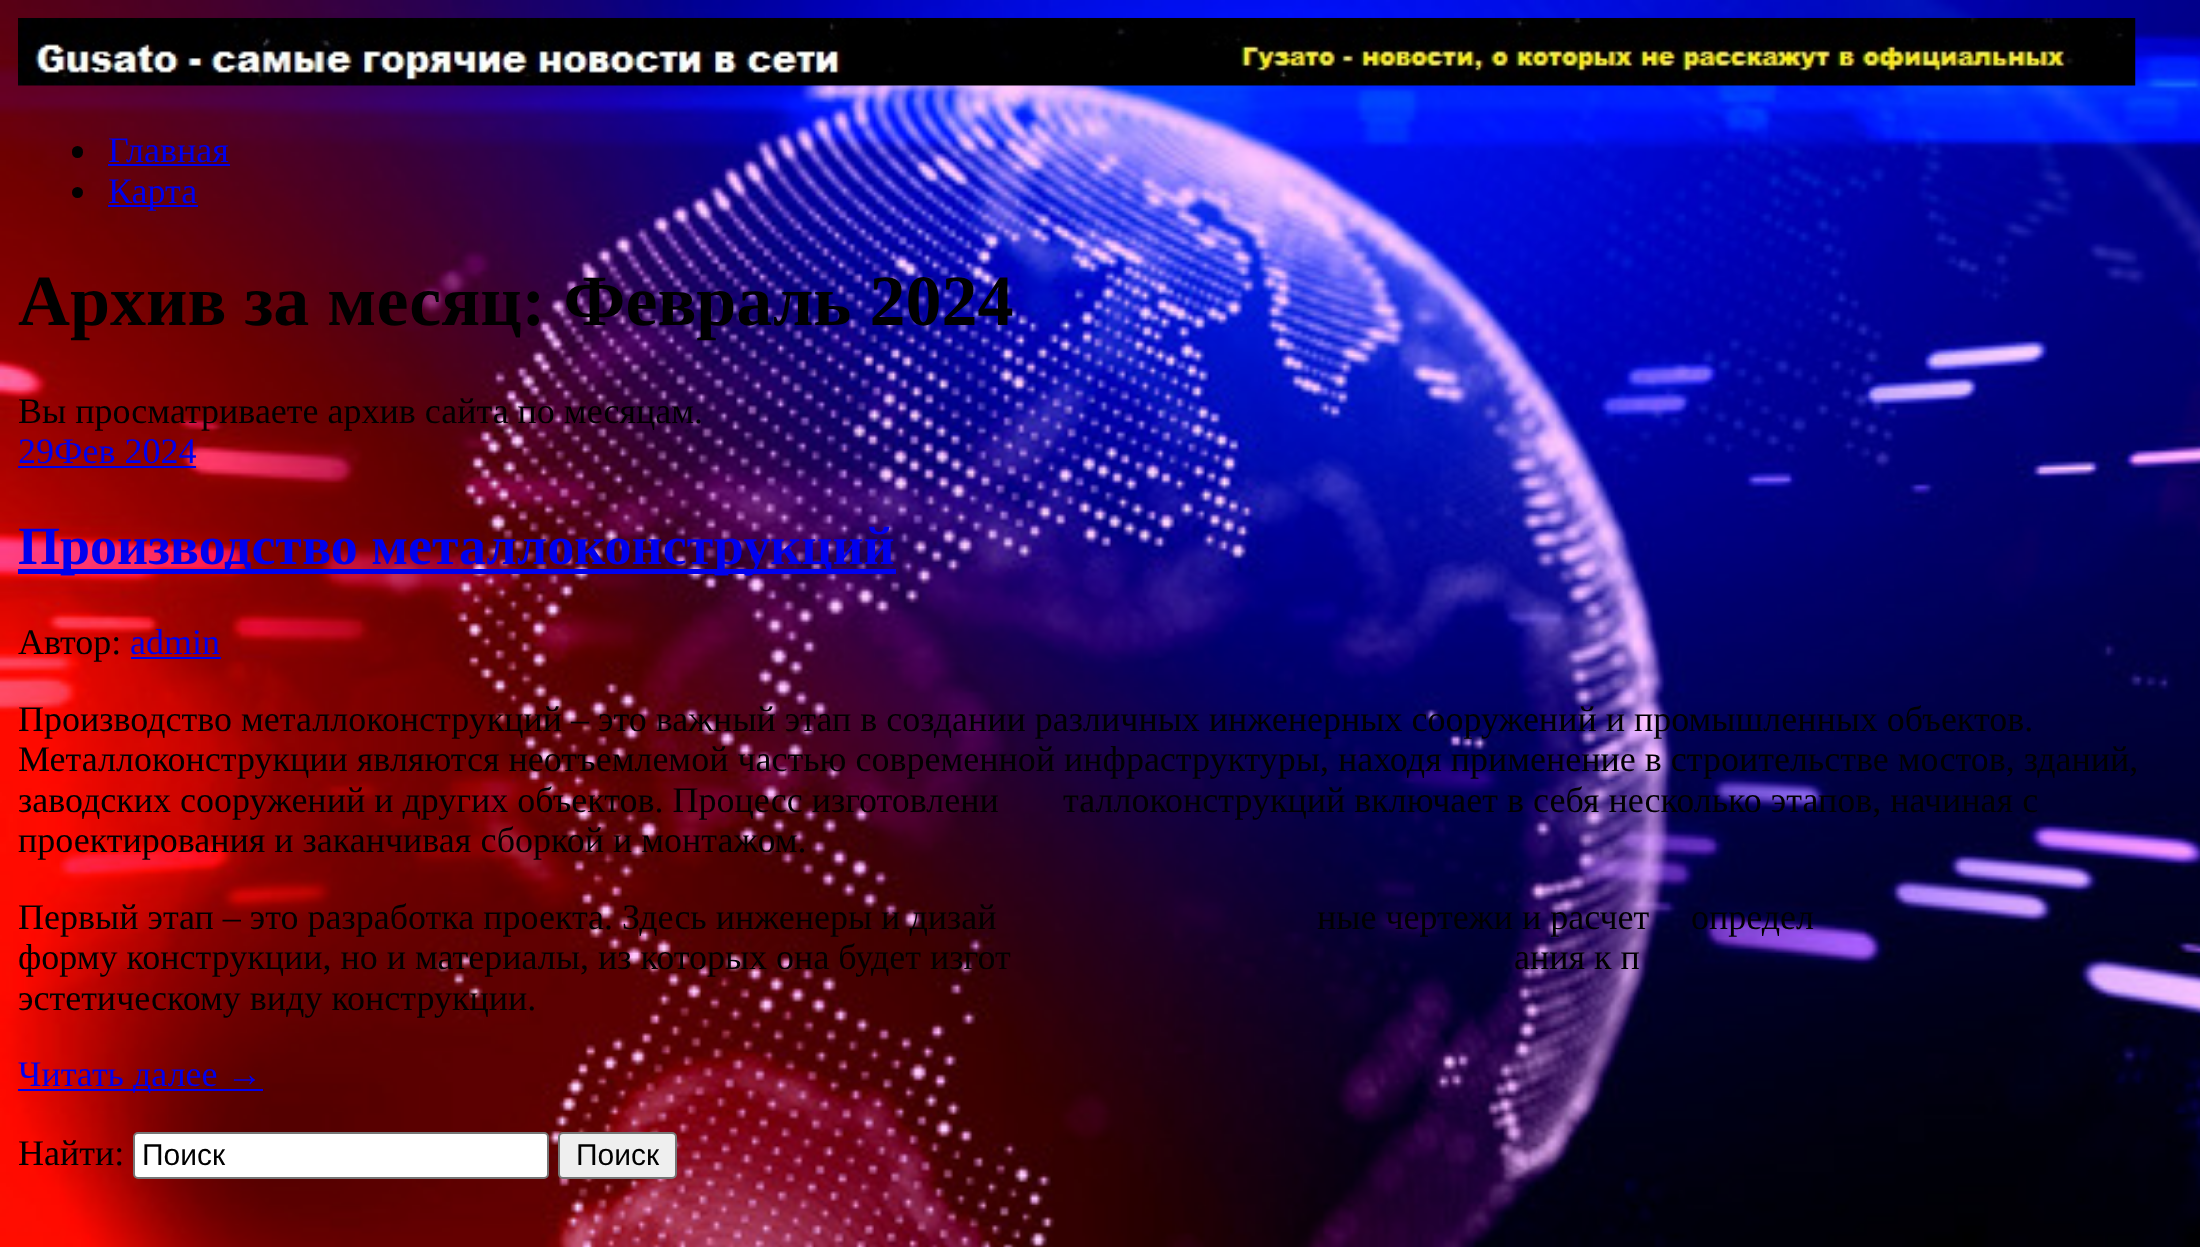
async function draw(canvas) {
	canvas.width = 2200;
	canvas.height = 1247;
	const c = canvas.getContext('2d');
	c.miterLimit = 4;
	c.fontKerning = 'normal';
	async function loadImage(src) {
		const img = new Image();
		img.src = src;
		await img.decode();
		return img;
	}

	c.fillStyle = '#fff';
	c.fillRect(0, 0, 2200, 1247);
	c.drawImage(await loadImage('img1.png'), 0, 0, 2200, 1247);
	c.drawImage(await loadImage('img2.png'), 18, 18, 2118, 68);
	c.fillStyle = '#000';
	c.beginPath();
	c.roundRect(72, 146, 11, 12, 5.5);
	c.fill();
	c.font = '36px Liberation Serif';
	c.fillStyle = '#00e';
	c.fillText('Главная', 108, 162);
	c.fillRect(108, 164, 122, 2);
	c.fillStyle = '#000';
	c.beginPath();
	c.arc(77.5, 192.5, 5.5, 0, 2 * Math.PI);
	c.fill();
	c.fillStyle = '#00e';
	c.fillRect(108, 205, 90, 2);
	c.fillText('Карта', 108, 203);
	c.font = 'bold 72px Liberation Serif';
	c.fillStyle = '#000';
	c.fillText('Архив за месяц: Февраль 2024', 18, 325);
	c.font = '36px Liberation Serif';
	c.fillText('Вы просматриваете архив сайта по месяцам.', 18, 423);
	c.fillStyle = '#00e';
	c.fillText('29Фев 2024', 18, 463);
	c.fillRect(18, 466, 178, 2);
	c.fillRect(18, 569, 878, 5);
	c.font = 'bold 54px Liberation Serif';
	c.fillText('Производство металлоконструкций', 18, 564);
	c.font = '36px Liberation Serif';
	c.fillStyle = '#000';
	c.fillText('Автор:', 18, 654);
	c.fillStyle = '#00e';
	c.fillText('admin', 130, 654);
	c.fillRect(131, 657, 90, 2);
	c.fillStyle = '#000';
	for (const [text, x, y] of [
		['Производство металлоконструкций – это важный этап в создании различных инженерных сооружений и промышленных объектов.', 18, 731],
		['Металлоконструкции являются неотъемлемой частью современной инфраструктуры, находя применение в строительстве мостов, зданий,', 18, 771],
		['заводских сооружений и других объектов. Процесс изготовлени', 18, 812],
		['таллоконструкций включает в себя несколько этапов, начиная с', 1063, 812],
		['проектирования и заканчивая сборкой и монтажом.', 18, 852],
		['Первый этап – это разработка проекта. Здесь инженеры и дизай', 18, 929],
		['ные чертежи и расчет', 1317, 929],
		['определ', 1691, 929],
		['форму конструкции, но и материалы, из которых она будет изгот', 18, 969],
		['ания к п', 1514, 969],
		['эстетическому виду конструкции.', 18, 1010],
	]) {
		c.fillText(text, x, y);
	}
	c.fillStyle = '#00e';
	c.fillRect(18, 1089, 245, 2);
	c.fillText('Читать далее →', 18, 1086);
	c.fillStyle = '#000';
	c.fillText('Найти:', 18, 1165);
	c.fillStyle = '#fff';
	c.beginPath();
	c.roundRect(134, 1133, 414, 45, 4);
	c.fill();
	c.strokeStyle = '#767676';
	c.lineWidth = 2;
	c.stroke();
	c.font = '30px Liberation Sans';
	c.fillStyle = '#000';
	c.fillText('Поиск', 142, 1165);
	c.fillStyle = '#efefef';
	c.beginPath();
	c.roundRect(559, 1133, 117, 45, 4);
	c.fill();
	c.stroke();
	c.fillStyle = '#000';
	c.fillText('Поиск', 576, 1165);
}

draw(document.querySelector('canvas'));
